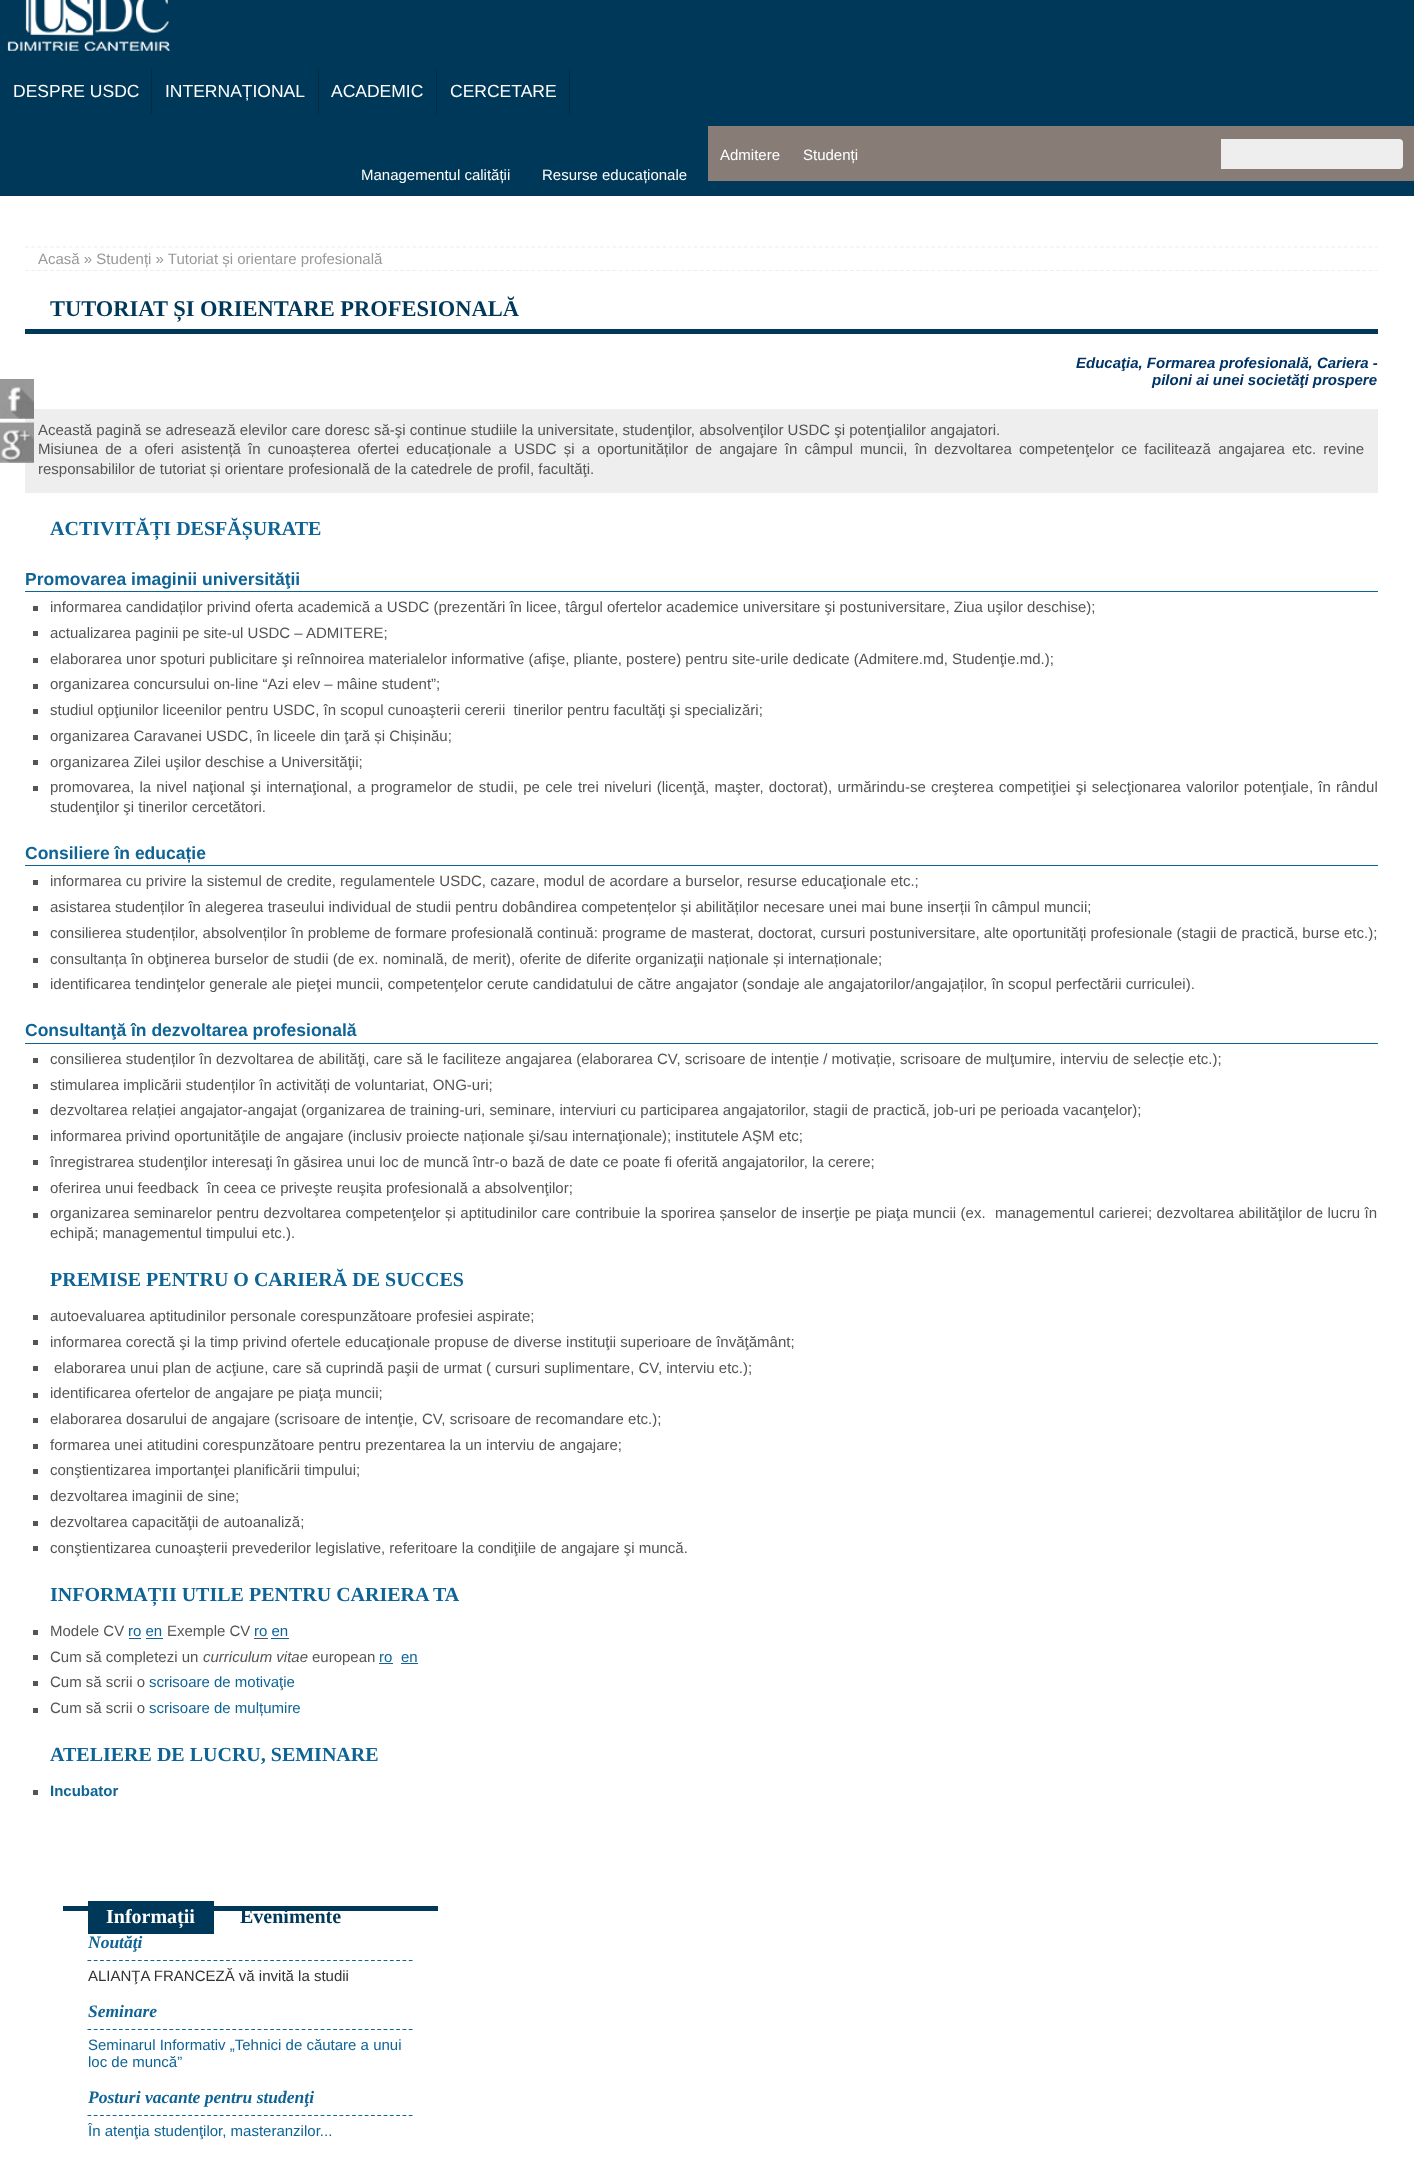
async function draw(canvas) {
	canvas.width = 1414;
	canvas.height = 2166;
	const c = canvas.getContext('2d');
	c.miterLimit = 4;
	c.fontKerning = 'normal';
	async function loadImage(src) {
		const img = new Image();
		img.src = src;
		await img.decode();
		return img;
	}

	c.fillStyle = '#fff';
	c.fillRect(0, 0, 1414, 2166);
	c.fillStyle = '#003859';
	c.fillRect(0, 0, 1414, 196);
	c.drawImage(await loadImage('img1.png'), 7, 0, 163, 51);
	c.fillStyle = '#032b42';
	c.fillRect(151, 69, 1, 45);
	c.font = '17.5px Liberation Sans';
	c.fillStyle = '#fff';
	c.fillText('DESPRE USDC', 13, 97);
	c.fillStyle = '#032b42';
	c.fillRect(318, 69, 1, 45);
	c.fillStyle = '#fff';
	c.fillText('INTERNAȚIONAL', 165, 97);
	c.fillStyle = '#032b42';
	c.fillRect(436, 69, 1, 45);
	c.fillStyle = '#fff';
	c.fillText('ACADEMIC', 331, 97);
	c.fillStyle = '#032b42';
	c.fillRect(569, 69, 1, 45);
	c.fillStyle = '#fff';
	c.fillText('CERCETARE', 450, 97);
	c.fillStyle = '#887d76';
	c.fillRect(708, 126, 706, 55);
	c.font = '15px Liberation Sans';
	c.fillStyle = '#fff';
	c.fillText('Admitere', 720, 160);
	c.fillText('Studenți', 803, 160);
	c.fillStyle = '#eee';
	c.beginPath();
	c.roundRect(1221, 139, 182, 30, [0, 4, 4, 0]);
	c.fill();
	c.fillStyle = '#fff';
	c.fillText('Managementul calității', 361, 180);
	c.fillText('Resurse educaționale', 542, 180);
	c.fillStyle = '#eee';
	c.fillRect(25, 409, 1353, 84);
	c.drawImage(await loadImage('img2.png'), 0, 379, 34, 40);
	c.drawImage(await loadImage('img3.png'), 0, 421, 34, 42);
	c.beginPath();
	c.moveTo(25, 247);
	c.lineTo(1377.5, 247);
	c.strokeStyle = '#eee';
	c.lineWidth = 1.2;
	c.setLineDash([3.75, 2.5]);
	c.stroke();
	c.beginPath();
	c.moveTo(25, 270.5);
	c.lineTo(1377.5, 270.5);
	c.stroke();
	c.fillStyle = '#999';
	c.fillText('Acasă » Studenți » Tutoriat și orientare profesională', 38, 264);
	c.fillStyle = '#003859';
	c.fillRect(25, 329, 1353, 5);
	c.font = 'bold 22.5px Liberation Serif';
	c.fillText('TUTORIAT ȘI ORIENTARE PROFESIONALĂ', 50, 316);
	c.font = 'italic bold 15px Liberation Sans';
	c.fillStyle = '#036';
	c.fillText('Educaţia, Formarea profesională, Cariera -', 1076, 368);
	c.fillText('piloni ai unei societăţi prospere', 1152, 385);
	c.font = '15px Liberation Sans';
	c.fillStyle = '#555';
	c.fillText('Această pagină se adresează elevilor care doresc să-şi continue studiile la universitate, studenţilor, absolvenţilor USDC şi potenţialilor angajatori.', 38, 435);
	c.wordSpacing = '3px';
	c.fillText('Misiunea de a oferi asistență în cunoașterea ofertei educaționale a USDC și a oportunităților de angajare în câmpul muncii, în dezvoltarea competenţelor ce facilitează angajarea etc. revine', 38, 454);
	c.wordSpacing = '0px';
	c.fillText('responsabililor de tutoriat și orientare profesională de la catedrele de profil, facultăţi.', 38, 474);
	c.font = 'bold 20px Liberation Serif';
	c.fillStyle = '#0f6496';
	c.fillText('ACTIVITĂȚI DESFĂȘURATE', 50, 535);
	c.fillRect(25, 591, 1353, 1);
	c.font = 'bold 17.5px Liberation Sans';
	c.fillText('Promovarea imaginii universităţii', 25, 585);
	c.fillStyle = '#555';
	c.fillRect(33, 606, 5, 5);
	c.font = '15px Liberation Sans';
	c.fillText('informarea candidaților privind oferta academică a USDC (prezentări în licee, târgul ofertelor academice universitare şi postuniversitare, Ziua uşilor deschise);', 50, 612);
	c.fillRect(33, 631, 5, 5);
	c.fillText('actualizarea paginii pe site-ul USDC – ADMITERE;', 50, 638);
	c.fillRect(33, 658, 5, 5);
	c.fillText('elaborarea unor spoturi publicitare şi reînnoirea materialelor informative (afişe, pliante, postere) pentru site-urile dedicate (Admitere.md, Studenţie.md.);', 50, 664);
	c.fillRect(33, 684, 5, 5);
	c.fillText('organizarea concursului on-line “Azi elev – mâine student”;', 50, 689);
	c.fillRect(33, 709, 5, 5);
	c.fillText('studiul opţiunilor liceenilor pentru USDC, în scopul cunoaşterii cererii  tinerilor pentru facultăţi şi specializări;', 50, 715);
	c.fillRect(33, 735, 5, 5);
	c.fillText('organizarea Caravanei USDC, în liceele din ţară și Chișinău;', 50, 741);
	c.fillRect(33, 760, 5, 5);
	c.fillText('organizarea Zilei uşilor deschise a Universităţii;', 50, 767);
	c.fillRect(33, 786, 5, 5);
	c.wordSpacing = '1.05px';
	c.fillText('promovarea, la nivel naţional şi internaţional, a programelor de studii, pe cele trei niveluri (licenţă, maşter, doctorat), urmărindu-se creşterea competiţiei şi selecţionarea valorilor potenţiale, în rândul', 50, 792);
	c.wordSpacing = '0px';
	c.fillText('studenţilor şi tinerilor cercetători.', 50, 812);
	c.fillStyle = '#0f6496';
	c.fillRect(25, 865, 1353, 1);
	c.font = 'bold 17.5px Liberation Sans';
	c.fillText('Consiliere în educație', 25, 859);
	c.fillStyle = '#555';
	c.fillRect(33, 880, 5, 5);
	c.font = '15px Liberation Sans';
	c.fillText('informarea cu privire la sistemul de credite, regulamentele USDC, cazare, modul de acordare a burselor, resurse educaţionale etc.;', 50, 886);
	c.fillRect(33, 906, 5, 5);
	c.fillText('asistarea studenților în alegerea traseului individual de studii pentru dobândirea competențelor și abilităților necesare unei mai bune inserții în câmpul muncii;', 50, 912);
	c.fillRect(33, 931, 5, 5);
	c.fillText('consilierea studenților, absolvenților în probleme de formare profesională continuă: programe de masterat, doctorat, cursuri postuniversitare, alte oportunități profesionale (stagii de practică, burse etc.);', 50, 938);
	c.fillRect(33, 958, 5, 5);
	c.fillText('consultanța în obţinerea burselor de studii (de ex. nominală, de merit), oferite de diferite organizaţii naționale și internaționale;', 50, 964);
	c.fillRect(33, 983, 5, 5);
	c.fillText('identificarea tendinţelor generale ale pieţei muncii, competenţelor cerute candidatului de către angajator (sondaje ale angajatorilor/angajaților, în scopul perfectării curriculei).', 50, 989);
	c.fillStyle = '#0f6496';
	c.fillRect(25, 1043, 1353, 1);
	c.font = 'bold 17.5px Liberation Sans';
	c.fillText('Consultanţă în dezvoltarea profesională', 25, 1036);
	c.fillStyle = '#555';
	c.fillRect(33, 1058, 5, 5);
	c.font = '15px Liberation Sans';
	c.fillText('consilierea studenților în dezvoltarea de abilităţi, care să le faciliteze angajarea (elaborarea CV, scrisoare de intenție / motivație, scrisoare de mulţumire, interviu de selecție etc.);', 50, 1064);
	c.fillRect(33, 1084, 5, 5);
	c.fillText('stimularea implicării studenților în activități de voluntariat, ONG-uri;', 50, 1090);
	c.fillRect(33, 1109, 5, 5);
	c.fillText('dezvoltarea relației angajator-angajat (organizarea de training-uri, seminare, interviuri cu participarea angajatorilor, stagii de practică, job-uri pe perioada vacanţelor);', 50, 1115);
	c.fillRect(33, 1135, 5, 5);
	c.fillText('informarea privind oportunităţile de angajare (inclusiv proiecte naționale şi/sau internaţionale); institutele AŞM etc;', 50, 1141);
	c.fillRect(33, 1160, 5, 5);
	c.fillText('înregistrarea studenţilor interesaţi în găsirea unui loc de muncă într-o bază de date ce poate fi oferită angajatorilor, la cerere;', 50, 1167);
	c.fillRect(33, 1186, 5, 5);
	c.fillText('oferirea unui feedback  în ceea ce priveşte reuşita profesională a absolvenţilor;', 50, 1193);
	c.fillRect(33, 1213, 5, 5);
	c.wordSpacing = '0.3px';
	c.fillText('organizarea seminarelor pentru dezvoltarea competenţelor și aptitudinilor care contribuie la sporirea șanselor de inserţie pe piaţa muncii (ex.', 50, 1218);
	c.fillText('managementul carierei; dezvoltarea abilităţilor de lucru în', 995, 1218);
	c.wordSpacing = '0px';
	c.fillText('echipă; managementul timpului etc.).', 50, 1238);
	c.font = 'bold 20px Liberation Serif';
	c.fillStyle = '#0f6496';
	c.fillText('PREMISE PENTRU O CARIERĂ DE SUCCES', 50, 1286);
	c.fillStyle = '#555';
	c.fillRect(33, 1315, 5, 5);
	c.font = '15px Liberation Sans';
	c.fillText('autoevaluarea aptitudinilor personale corespunzătoare profesiei aspirate;', 50, 1321);
	c.fillRect(33, 1340, 5, 5);
	c.fillText('informarea corectă şi la timp privind ofertele educaţionale propuse de diverse instituţii superioare de învăţământ;', 50, 1347);
	c.fillRect(33, 1366, 5, 5);
	c.fillText('elaborarea unui plan de acţiune, care să cuprindă paşii de urmat ( cursuri suplimentare, CV, interviu etc.);', 54, 1373);
	c.fillRect(33, 1393, 5, 5);
	c.fillText('identificarea ofertelor de angajare pe piaţa muncii;', 50, 1398);
	c.fillRect(33, 1418, 5, 5);
	c.fillText('elaborarea dosarului de angajare (scrisoare de intenţie, CV, scrisoare de recomandare etc.);', 50, 1424);
	c.fillRect(33, 1444, 5, 5);
	c.fillText('formarea unei atitudini corespunzătoare pentru prezentarea la un interviu de angajare;', 50, 1450);
	c.fillRect(33, 1469, 5, 5);
	c.fillText('conştientizarea importanţei planificării timpului;', 50, 1475);
	c.fillRect(33, 1495, 5, 5);
	c.fillText('dezvoltarea imaginii de sine;', 50, 1501);
	c.fillRect(33, 1521, 5, 5);
	c.fillText('dezvoltarea capacităţii de autoanaliză;', 50, 1527);
	c.fillRect(33, 1546, 5, 5);
	c.fillText('conştientizarea cunoaşterii prevederilor legislative, referitoare la condiţiile de angajare şi muncă.', 50, 1553);
	c.font = 'bold 20px Liberation Serif';
	c.fillStyle = '#0f6496';
	c.fillText('INFORMAȚII UTILE PENTRU CARIERA TA', 50, 1601);
	c.fillStyle = '#555';
	c.fillRect(33, 1630, 5, 5);
	c.font = '15px Liberation Sans';
	c.fillText('Modele CV', 50, 1636);
	c.fillStyle = '#0f6496';
	c.fillText('ro en', 128, 1636);
	c.fillRect(129, 1638, 12, 1);
	c.fillStyle = '#555';
	c.fillText('Exemple CV', 167, 1636);
	c.fillStyle = '#0f6496';
	c.fillText('ro en', 254, 1636);
	for (const [x, y, w, h, color] of [
		[254, 1638, 14, 1, '#555'],
		[146, 1638, 17, 1, '#0f6496'],
		[271, 1638, 18, 1, '#0f6496'],
		[33, 1655, 5, 5, '#555'],
	]) {
		c.fillStyle = color;
		c.fillRect(x, y, w, h);
	}
	c.fillText('Cum să completezi un', 50, 1662);
	c.font = 'italic 15px Liberation Sans';
	c.fillText('curriculum vitae', 203, 1662);
	c.font = '15px Liberation Sans';
	c.fillText('european', 312, 1662);
	c.fillStyle = '#0f6496';
	c.fillText('ro', 379, 1662);
	c.fillRect(379, 1663, 14, 1);
	c.fillText('en', 401, 1662);
	c.fillRect(401, 1663, 17, 1);
	c.fillStyle = '#555';
	c.fillRect(33, 1681, 5, 5);
	c.fillText('Cum să scrii o', 50, 1687);
	c.fillStyle = '#0f6496';
	c.fillText('scrisoare de motivaţie', 149, 1687);
	c.fillStyle = '#555';
	c.fillRect(33, 1708, 5, 5);
	c.fillText('Cum să scrii o', 50, 1713);
	c.fillStyle = '#0f6496';
	c.fillText('scrisoare de mulțumire', 149, 1713);
	c.font = 'bold 20px Liberation Serif';
	c.fillText('ATELIERE DE LUCRU, SEMINARE', 50, 1761);
	c.fillStyle = '#555';
	c.fillRect(33, 1790, 5, 5);
	c.font = 'bold 15px Liberation Sans';
	c.fillStyle = '#0f6496';
	c.fillText('Incubator', 50, 1796);
	c.fillStyle = '#003859';
	c.fillRect(63, 1906, 375, 5);
	c.fillRect(88, 1901, 126, 33);
	c.font = 'bold 20px Liberation Serif';
	c.fillStyle = '#fff';
	c.fillText('Informații', 106, 1923);
	c.fillStyle = '#003859';
	c.fillText('Evenimente', 240, 1923);
	c.beginPath();
	c.moveTo(87.5, 1960.5);
	c.lineTo(412.5, 1960.5);
	c.strokeStyle = '#0f6496';
	c.setLineDash([3.75, 2.55]);
	c.stroke();
	c.font = 'italic bold 17.5px Liberation Serif';
	c.fillStyle = '#0f6496';
	c.fillText('Noutăţi', 88, 1948);
	c.font = '15px Liberation Sans';
	c.fillStyle = '#333';
	c.fillText('ALIANŢA FRANCEZĂ vă invită la studii', 88, 1981);
	c.beginPath();
	c.moveTo(87.5, 2029.5);
	c.lineTo(412.5, 2029.5);
	c.stroke();
	c.font = 'italic bold 17.5px Liberation Serif';
	c.fillStyle = '#0f6496';
	c.fillText('Seminare', 88, 2017);
	c.font = '15px Liberation Sans';
	c.fillText('Seminarul Informativ „Tehnici de căutare a unui', 88, 2050);
	c.fillText('loc de muncă”', 88, 2067);
	c.beginPath();
	c.moveTo(87.5, 2115.5);
	c.lineTo(412.5, 2115.5);
	c.stroke();
	c.font = 'italic bold 17.5px Liberation Serif';
	c.fillText('Posturi vacante pentru studenţi', 88, 2103);
	c.font = '15px Liberation Sans';
	c.fillText('În atenţia studenţilor, masteranzilor...', 88, 2136);
}

draw(document.querySelector('canvas'));
